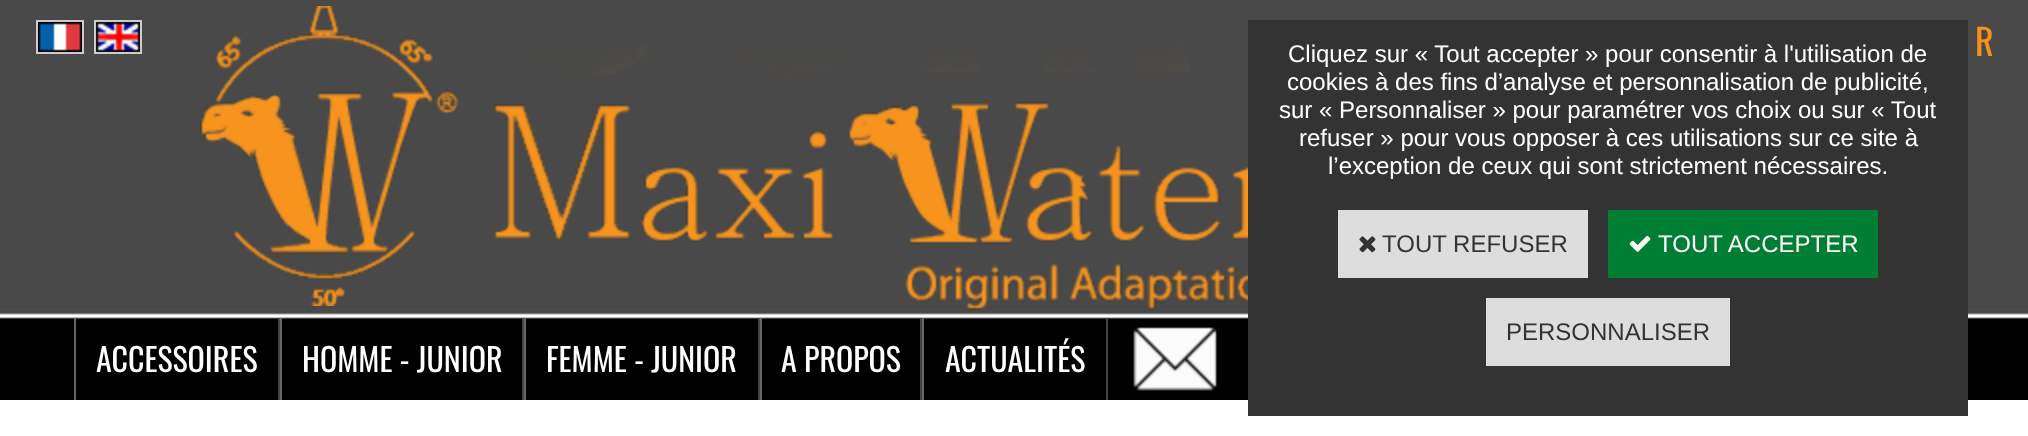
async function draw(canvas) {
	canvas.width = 2028;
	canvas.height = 436;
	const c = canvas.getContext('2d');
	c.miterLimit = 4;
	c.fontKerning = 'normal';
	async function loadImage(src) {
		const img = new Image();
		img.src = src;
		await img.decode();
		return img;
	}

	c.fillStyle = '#fff';
	c.fillRect(0, 0, 2028, 436);
	c.drawImage(await loadImage('img1.png'), 0, 0, 2028, 400);
	c.drawImage(await loadImage('img2.png'), 38, 22, 44, 30);
	c.strokeStyle = '#ccc';
	c.lineWidth = 2;
	c.strokeRect(37, 21, 46, 32);
	c.drawImage(await loadImage('img3.png'), 96, 22, 44, 30);
	c.strokeRect(95, 21, 46, 32);
	c.drawImage(await loadImage('img4.png'), 199, 6, 260, 300);
	c.font = '36px Oswald';
	c.fillStyle = '#f79214';
	c.fillText('R', 1975, 56);
	c.drawImage(await loadImage('img5.png'), 494, 46, 754, 265);
	c.fillStyle = '#444';
	c.fillRect(278, 318, 2, 82);
	c.fillStyle = '#666';
	c.fillRect(74, 318, 2, 82);
	c.font = '32px Oswald';
	c.fillStyle = '#fff';
	c.fillText('ACCESSOIRES', 96, 372);
	c.fillStyle = '#444';
	c.fillRect(522, 318, 2, 82);
	c.fillStyle = '#666';
	c.fillRect(280, 318, 2, 82);
	c.fillStyle = '#fff';
	c.fillText('HOMME - JUNIOR', 302, 372);
	c.fillStyle = '#444';
	c.fillRect(758, 318, 2, 82);
	c.fillStyle = '#666';
	c.fillRect(524, 318, 2, 82);
	c.fillStyle = '#fff';
	c.fillText('FEMME - JUNIOR', 546, 372);
	c.fillStyle = '#444';
	c.fillRect(920, 318, 2, 82);
	c.fillStyle = '#666';
	c.fillRect(760, 318, 2, 82);
	c.fillStyle = '#fff';
	c.fillText('A PROPOS', 781, 372);
	c.fillStyle = '#444';
	c.fillRect(1106, 318, 2, 82);
	c.fillStyle = '#666';
	c.fillRect(922, 318, 2, 82);
	c.fillStyle = '#fff';
	c.fillText('ACTUALITÉS', 945, 372);
	c.drawImage(await loadImage('img6.png'), 1133, 327, 84, 64);
	c.fillStyle = '#333';
	c.fillRect(1248, 20, 720, 396);
	c.font = '24px Liberation Sans';
	c.fillStyle = '#fff';
	for (const [text, x, y] of [
		['Cliquez sur « Tout accepter » pour consentir à l\'utilisation de', 1288, 62],
		['cookies à des fins d’analyse et personnalisation de publicité,', 1287, 90],
		['sur « Personnaliser » pour paramétrer vos choix ou sur « Tout', 1279, 118],
		['refuser » pour vous opposer à ces utilisations sur ce site à', 1299, 146],
		['l’exception de ceux qui sont strictement nécessaires.', 1328, 174],
	]) {
		c.fillText(text, x, y);
	}
	c.fillStyle = '#ddd';
	c.fillRect(1338, 210, 250, 68);
	c.drawImage(await loadImage('img7.png'), 1359, 236, 17, 17);
	c.fillStyle = '#333';
	c.fillText('TOUT REFUSER', 1382, 252);
	c.fillStyle = '#007e33';
	c.fillRect(1608, 210, 270, 68);
	c.drawImage(await loadImage('img8.png'), 1629, 235, 22, 17);
	c.fillStyle = '#fff';
	c.fillText('TOUT ACCEPTER', 1658, 252);
	c.fillStyle = '#ddd';
	c.fillRect(1486, 298, 244, 68);
	c.fillStyle = '#333';
	c.fillText('PERSONNALISER', 1506, 340);
}

draw(document.querySelector('canvas'));
